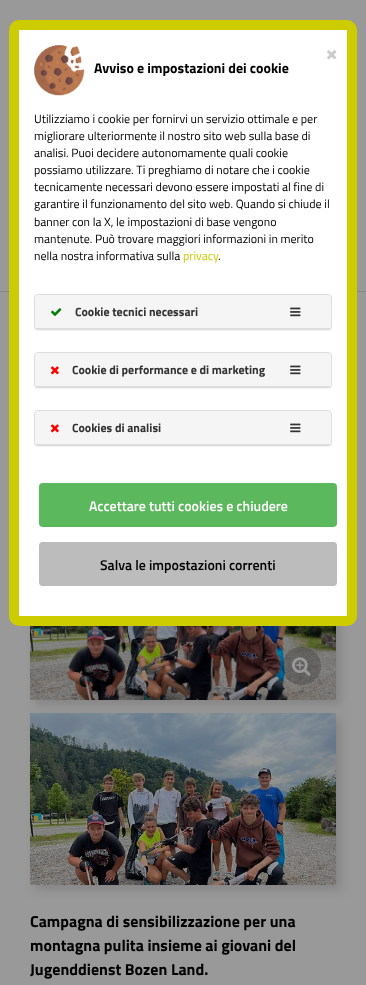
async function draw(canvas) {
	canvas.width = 366;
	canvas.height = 985;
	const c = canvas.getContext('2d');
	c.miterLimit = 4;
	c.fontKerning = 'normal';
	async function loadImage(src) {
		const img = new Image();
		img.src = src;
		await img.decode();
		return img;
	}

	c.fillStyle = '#999';
	c.fillRect(0, 0, 366, 985);
	c.fillStyle = '#858585';
	c.fillRect(0, 291, 366, 1);
	c.filter = 'blur(5px)';
	c.beginPath();
	c.rect(35, 533, 306, 172);
	c.fill();
	c.filter = 'none';
	c.fillStyle = '#fff';
	c.beginPath();
	c.roundRect(14, 25, 338, 596, 5);
	c.fill();
	c.strokeStyle = '#cdcc00';
	c.lineWidth = 10;
	c.stroke();
	c.drawImage(await loadImage('img1.png'), 327, 50, 10, 10);
	c.drawImage(await loadImage('img2.png'), 34, 45, 51, 51);
	c.font = 'bold 14px Titillium Web';
	c.fillStyle = '#000';
	c.fillText('Avviso e impostazioni dei cookie', 94, 73);
	c.font = '12px Titillium Web';
	for (const [text, x, y] of [
		['Utilizziamo i cookie per fornirvi un servizio ottimale e per', 34, 123],
		['migliorare ulteriormente il nostro sito web sulla base di', 34, 140],
		['analisi. Puoi decidere autonomamente quali cookie', 34, 157],
		['possiamo utilizzare. Ti preghiamo di notare che i cookie', 34, 174],
		['tecnicamente necessari devono essere impostati al fine di', 34, 191],
		['garantire il funzionamento del sito web. Quando si chiude il', 34, 208],
		['banner con la X, le impostazioni di base vengono', 34, 226],
		['mantenute. Può trovare maggiori informazioni in merito', 34, 243],
		['nella nostra informativa sulla', 34, 260],
	]) {
		c.fillText(text, x, y);
	}
	c.fillStyle = '#cdcc00';
	c.fillText('privacy', 183, 260);
	c.fillStyle = '#000';
	c.fillText('.', 218, 260);
	c.fillStyle = '#0000000d';
	c.filter = 'blur(0.5px)';
	c.beginPath();
	c.roundRect(34, 295, 298, 36, 4);
	c.fill();
	c.filter = 'none';
	c.beginPath();
	c.roundRect(34.5, 294.5, 297, 35, 3.5);
	c.strokeStyle = '#ddd';
	c.lineWidth = 1;
	c.stroke();
	c.fillStyle = '#f5f5f5';
	c.beginPath();
	c.roundRect(35, 295, 296, 34, [3, 3, 0, 0]);
	c.fill();
	c.fillStyle = '#ddd';
	c.fillRect(35, 328, 296, 1);
	c.drawImage(await loadImage('img3.png'), 51, 308, 11, 8);
	c.font = 'bold 12px Titillium Web';
	c.fillStyle = '#333';
	c.fillText('Cookie tecnici necessari', 75, 316);
	c.drawImage(await loadImage('img4.png'), 290, 307, 11, 10);
	c.fillStyle = '#0000000d';
	c.filter = 'blur(0.5px)';
	c.beginPath();
	c.roundRect(34, 353, 298, 36, 4);
	c.fill();
	c.filter = 'none';
	c.beginPath();
	c.roundRect(34.5, 352.5, 297, 35, 3.5);
	c.stroke();
	c.fillStyle = '#f5f5f5';
	c.beginPath();
	c.roundRect(35, 353, 296, 34, [3, 3, 0, 0]);
	c.fill();
	c.fillStyle = '#ddd';
	c.fillRect(35, 386, 296, 1);
	c.drawImage(await loadImage('img5.png'), 50, 366, 9, 9);
	c.fillStyle = '#333';
	c.fillText('Cookie di performance e di marketing', 72, 374);
	c.drawImage(await loadImage('img4.png'), 290, 365, 11, 10);
	c.fillStyle = '#0000000d';
	c.filter = 'blur(0.5px)';
	c.beginPath();
	c.roundRect(34, 411, 298, 36, 4);
	c.fill();
	c.filter = 'none';
	c.beginPath();
	c.roundRect(34.5, 410.5, 297, 35, 3.5);
	c.stroke();
	c.fillStyle = '#f5f5f5';
	c.beginPath();
	c.roundRect(35, 411, 296, 34, [3, 3, 0, 0]);
	c.fill();
	c.fillStyle = '#ddd';
	c.fillRect(35, 444, 296, 1);
	c.drawImage(await loadImage('img5.png'), 50, 424, 9, 9);
	c.fillStyle = '#333';
	c.fillText('Cookies di analisi', 72, 432);
	c.drawImage(await loadImage('img4.png'), 290, 423, 11, 10);
	c.fillStyle = '#5cb85c';
	c.beginPath();
	c.roundRect(39, 483, 298, 44, 4);
	c.fill();
	c.font = '600 14px Titillium Web';
	c.fillStyle = '#fff';
	c.fillText('Accettare tutti cookies e chiudere', 89, 511);
	c.fillStyle = '#bcbcbc';
	c.beginPath();
	c.roundRect(39, 542, 298, 44, 4);
	c.fill();
	c.fillStyle = '#000';
	c.fillText('Salva le impostazioni correnti', 100, 570);
	c.drawImage(await loadImage('img6.png'), 30, 626, 306, 74);
	c.fillStyle = '#00000033';
	c.beginPath();
	c.roundRect(282, 647, 39, 38, 19);
	c.fill();
	c.drawImage(await loadImage('img7.png'), 292, 657, 19, 19);
	c.fillStyle = '#858585';
	c.filter = 'blur(5px)';
	c.beginPath();
	c.rect(35, 718, 306, 172);
	c.fill();
	c.filter = 'none';
	c.drawImage(await loadImage('img8.png'), 30, 713, 306, 172);
	c.font = 'bold 16px Titillium Web';
	c.fillStyle = '#000';
	for (const [text, x, y] of [
		['Campagna di sensibilizzazione per una', 30, 927],
		['montagna pulita insieme ai giovani del', 30, 951],
		['Jugenddienst Bozen Land.', 30, 975],
	]) {
		c.fillText(text, x, y);
	}
}

draw(document.querySelector('canvas'));
